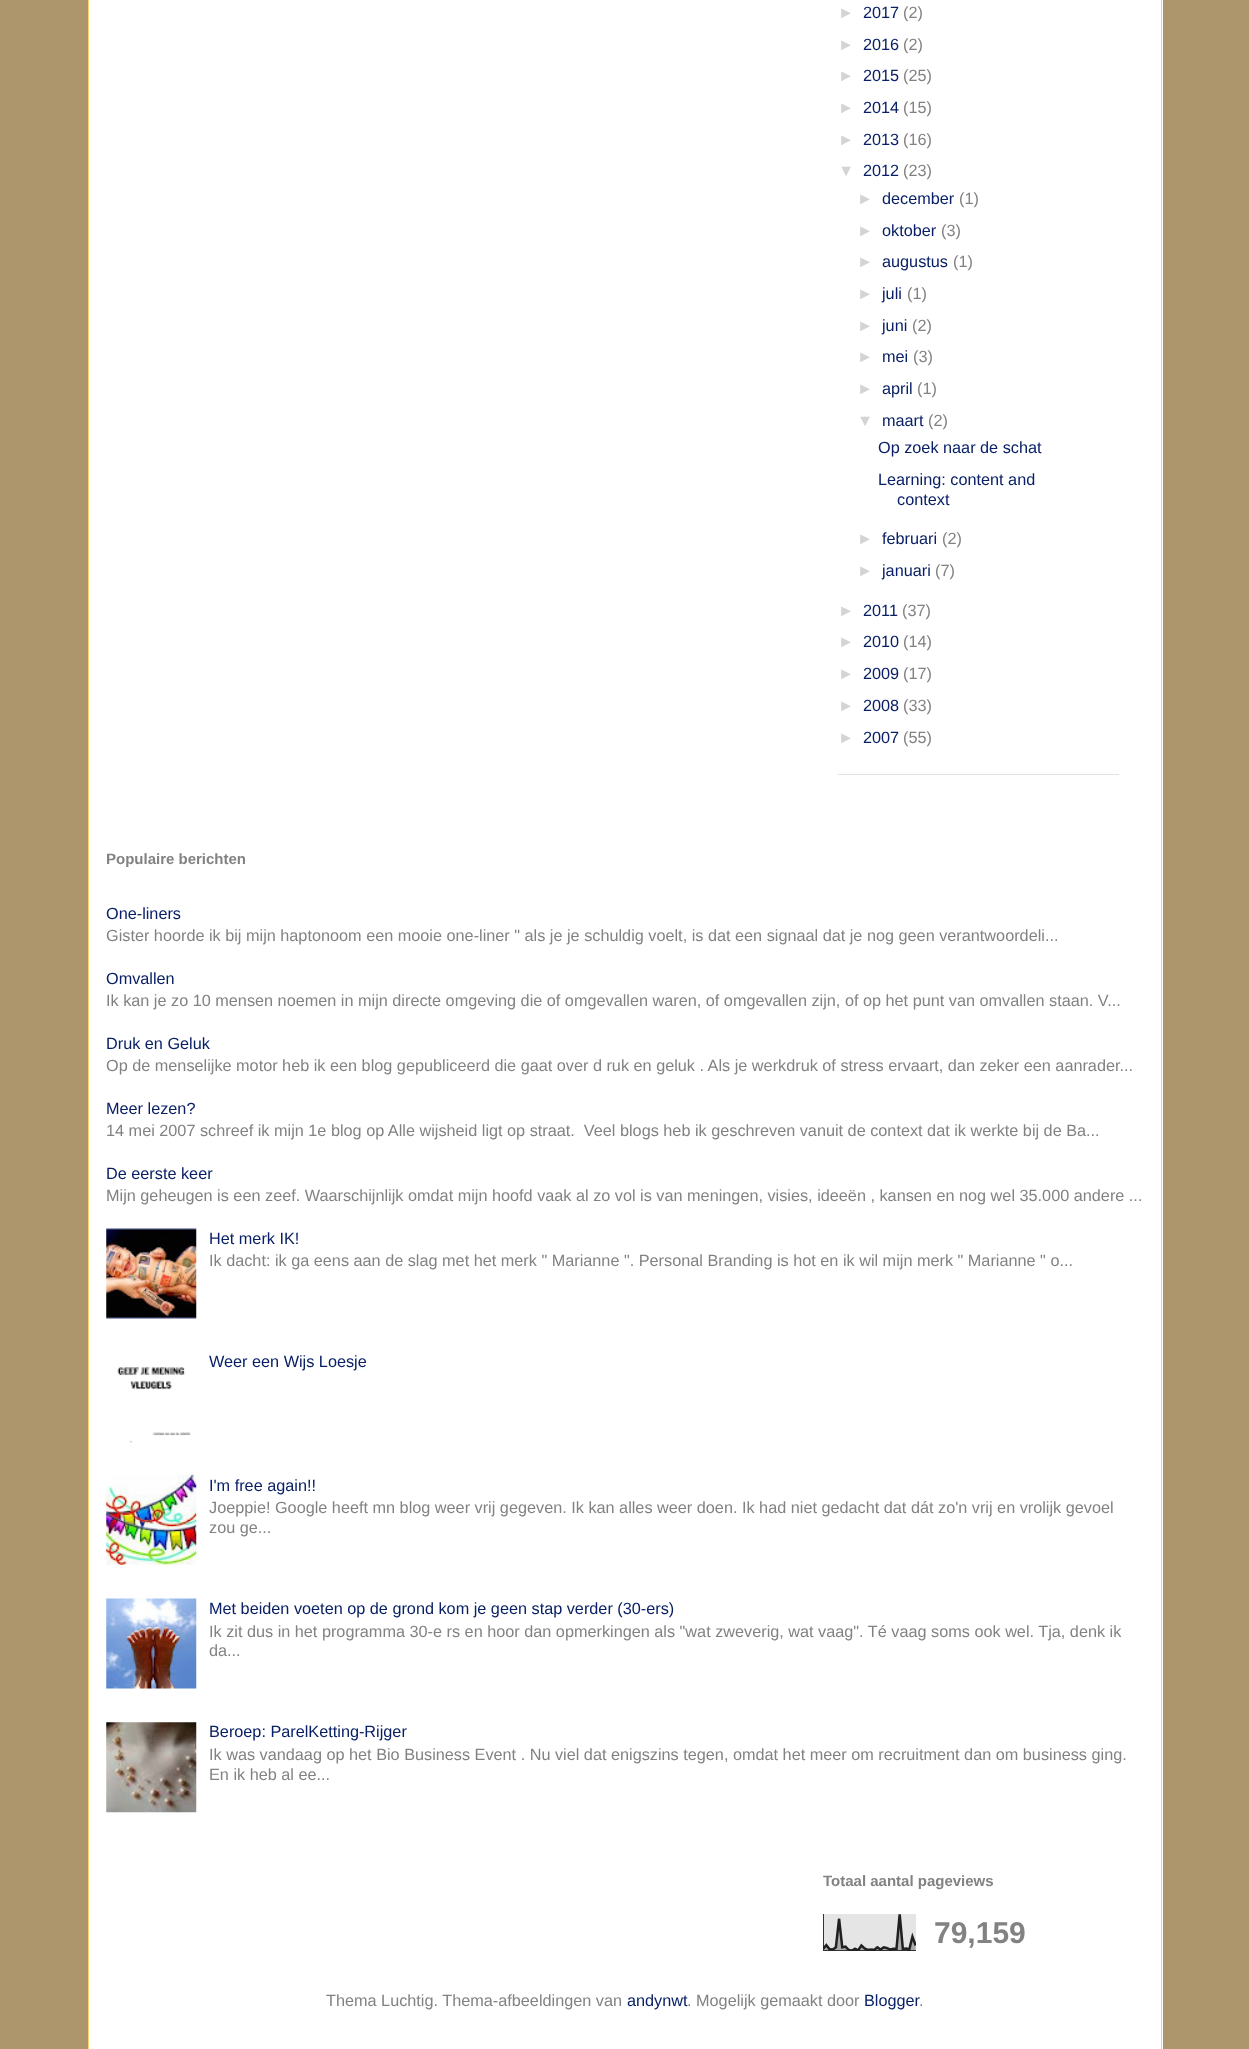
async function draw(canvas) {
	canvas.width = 1249;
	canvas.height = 2049;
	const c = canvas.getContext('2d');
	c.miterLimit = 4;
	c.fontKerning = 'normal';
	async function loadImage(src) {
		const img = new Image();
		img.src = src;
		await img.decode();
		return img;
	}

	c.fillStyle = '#ad966c';
	c.fillRect(0, 0, 1249, 2049);
	for (const [x, y, w, h, color] of [
		[89, 0, 1074, 2049, '#fff'],
		[1161, 0, 1, 2049, '#fbd26c'],
		[88, 0, 1, 2049, '#fbd26c'],
		[838, 774, 281, 1, '#e2e2e2'],
	]) {
		c.fillStyle = color;
		c.fillRect(x, y, w, h);
	}
	c.font = '16.25px Liberation Sans';
	c.fillStyle = '#d4d4d4';
	c.fillText('►', 838, 18);
	c.fillStyle = '#092066';
	c.fillText('2017', 863, 18);
	c.fillStyle = '#828282';
	c.fillText('(2)', 903, 18);
	c.fillStyle = '#d4d4d4';
	c.fillText('►', 838, 50);
	c.fillStyle = '#092066';
	c.fillText('2016', 863, 50);
	c.fillStyle = '#828282';
	c.fillText('(2)', 903, 50);
	c.fillStyle = '#d4d4d4';
	c.fillText('►', 838, 81);
	c.fillStyle = '#092066';
	c.fillText('2015', 863, 81);
	c.fillStyle = '#828282';
	c.fillText('(25)', 903, 81);
	c.fillStyle = '#d4d4d4';
	c.fillText('►', 838, 113);
	c.fillStyle = '#092066';
	c.fillText('2014', 863, 113);
	c.fillStyle = '#828282';
	c.fillText('(15)', 903, 113);
	c.fillStyle = '#d4d4d4';
	c.fillText('►', 838, 145);
	c.fillStyle = '#092066';
	c.fillText('2013', 863, 145);
	c.fillStyle = '#828282';
	c.fillText('(16)', 903, 145);
	c.fillStyle = '#d4d4d4';
	c.fillText('▼', 838, 176);
	c.fillStyle = '#092066';
	c.fillText('2012', 863, 176);
	c.fillStyle = '#828282';
	c.fillText('(23)', 903, 176);
	c.fillStyle = '#d4d4d4';
	c.fillText('►', 857, 204);
	c.fillStyle = '#092066';
	c.fillText('december', 882, 204);
	c.fillStyle = '#828282';
	c.fillText('(1)', 959, 204);
	c.fillStyle = '#d4d4d4';
	c.fillText('►', 857, 236);
	c.fillStyle = '#092066';
	c.fillText('oktober', 882, 236);
	c.fillStyle = '#828282';
	c.fillText('(3)', 941, 236);
	c.fillStyle = '#d4d4d4';
	c.fillText('►', 857, 267);
	c.fillStyle = '#092066';
	c.fillText('augustus', 882, 267);
	c.fillStyle = '#828282';
	c.fillText('(1)', 953, 267);
	c.fillStyle = '#d4d4d4';
	c.fillText('►', 857, 299);
	c.fillStyle = '#092066';
	c.fillText('juli', 882, 299);
	c.fillStyle = '#828282';
	c.fillText('(1)', 907, 299);
	c.fillStyle = '#d4d4d4';
	c.fillText('►', 857, 331);
	c.fillStyle = '#092066';
	c.fillText('juni', 882, 331);
	c.fillStyle = '#828282';
	c.fillText('(2)', 912, 331);
	c.fillStyle = '#d4d4d4';
	c.fillText('►', 857, 362);
	c.fillStyle = '#092066';
	c.fillText('mei', 882, 362);
	c.fillStyle = '#828282';
	c.fillText('(3)', 913, 362);
	c.fillStyle = '#d4d4d4';
	c.fillText('►', 857, 394);
	c.fillStyle = '#092066';
	c.fillText('april', 882, 394);
	c.fillStyle = '#828282';
	c.fillText('(1)', 917, 394);
	c.fillStyle = '#d4d4d4';
	c.fillText('▼', 857, 426);
	c.fillStyle = '#092066';
	c.fillText('maart', 882, 426);
	c.fillStyle = '#828282';
	c.fillText('(2)', 928, 426);
	c.fillStyle = '#092066';
	for (const [text, x, y] of [
		['Op zoek naar de schat', 878, 453],
		['Learning: content and', 878, 485],
		['context', 897, 505],
	]) {
		c.fillText(text, x, y);
	}
	c.fillStyle = '#d4d4d4';
	c.fillText('►', 857, 544);
	c.fillStyle = '#092066';
	c.fillText('februari', 882, 544);
	c.fillStyle = '#828282';
	c.fillText('(2)', 942, 544);
	c.fillStyle = '#d4d4d4';
	c.fillText('►', 857, 576);
	c.fillStyle = '#092066';
	c.fillText('januari', 882, 576);
	c.fillStyle = '#828282';
	c.fillText('(7)', 935, 576);
	c.fillStyle = '#d4d4d4';
	c.fillText('►', 838, 616);
	c.fillStyle = '#092066';
	c.fillText('2011', 863, 616);
	c.fillStyle = '#828282';
	c.fillText('(37)', 902, 616);
	c.fillStyle = '#d4d4d4';
	c.fillText('►', 838, 647);
	c.fillStyle = '#092066';
	c.fillText('2010', 863, 647);
	c.fillStyle = '#828282';
	c.fillText('(14)', 903, 647);
	c.fillStyle = '#d4d4d4';
	c.fillText('►', 838, 679);
	c.fillStyle = '#092066';
	c.fillText('2009', 863, 679);
	c.fillStyle = '#828282';
	c.fillText('(17)', 903, 679);
	c.fillStyle = '#d4d4d4';
	c.fillText('►', 838, 711);
	c.fillStyle = '#092066';
	c.fillText('2008', 863, 711);
	c.fillStyle = '#828282';
	c.fillText('(33)', 903, 711);
	c.fillStyle = '#d4d4d4';
	c.fillText('►', 838, 743);
	c.fillStyle = '#092066';
	c.fillText('2007', 863, 743);
	c.fillStyle = '#828282';
	c.fillText('(55)', 903, 743);
	c.font = 'bold 15px Liberation Sans';
	c.fillText('Populaire berichten', 106, 864);
	c.font = '16.25px Liberation Sans';
	c.fillStyle = '#092066';
	c.fillText('One-liners', 106, 919);
	c.fillStyle = '#828282';
	c.fillText('Gister hoorde ik bij mijn haptonoom een mooie one-liner " als je je schuldig voelt, is dat een signaal dat je nog geen verantwoordeli...', 106, 941);
	c.fillStyle = '#092066';
	c.fillText('Omvallen', 106, 984);
	c.fillStyle = '#828282';
	c.fillText('Ik kan je zo 10 mensen noemen in mijn directe omgeving die of omgevallen waren, of omgevallen zijn, of op het punt van omvallen staan. V...', 106, 1006);
	c.fillStyle = '#092066';
	c.fillText('Druk en Geluk', 106, 1049);
	c.fillStyle = '#828282';
	c.fillText('Op de menselijke motor heb ik een blog gepubliceerd die gaat over d ruk en geluk . Als je werkdruk of stress ervaart, dan zeker een aanrader...', 106, 1071);
	c.fillStyle = '#092066';
	c.fillText('Meer lezen?', 106, 1114);
	c.fillStyle = '#828282';
	c.fillText('14 mei 2007 schreef ik mijn 1e blog op Alle wijsheid ligt op straat.  Veel blogs heb ik geschreven vanuit de context dat ik werkte bij de Ba...', 106, 1136);
	c.fillStyle = '#092066';
	c.fillText('De eerste keer', 106, 1179);
	c.fillStyle = '#828282';
	c.fillText('Mijn geheugen is een zeef. Waarschijnlijk omdat mijn hoofd vaak al zo vol is van meningen, visies, ideeën , kansen en nog wel 35.000 andere ...', 106, 1201);
	c.drawImage(await loadImage('img1.png'), 106, 1228, 91, 91);
	c.fillStyle = '#092066';
	c.fillText('Het merk IK!', 209, 1244);
	c.fillStyle = '#828282';
	c.fillText('Ik dacht: ik ga eens aan de slag met het merk " Marianne ". Personal Branding is hot en ik wil mijn merk " Marianne " o...', 209, 1266);
	c.fillStyle = '#092066';
	c.fillText('Weer een Wijs Loesje', 209, 1367);
	c.drawImage(await loadImage('img2.png'), 117, 1367, 74, 76);
	c.drawImage(await loadImage('img3.png'), 106, 1474, 91, 91);
	c.fillText('I\'m free again!!', 209, 1491);
	c.fillStyle = '#828282';
	c.fillText('Joeppie! Google heeft mn blog weer vrij gegeven. Ik kan alles weer doen. Ik had niet gedacht dat dát zo\'n vrij en vrolijk gevoel', 209, 1513);
	c.fillText('zou ge...', 209, 1533);
	c.drawImage(await loadImage('img4.png'), 106, 1598, 91, 91);
	c.fillStyle = '#092066';
	c.fillText('Met beiden voeten op de grond kom je geen stap verder (30-ers)', 209, 1614);
	c.fillStyle = '#828282';
	c.fillText('Ik zit dus in het programma 30-e rs en hoor dan opmerkingen als "wat zweverig, wat vaag". Té vaag soms ook wel. Tja, denk ik', 209, 1637);
	c.fillText('da...', 209, 1656);
	c.drawImage(await loadImage('img5.png'), 106, 1722, 91, 91);
	c.fillStyle = '#092066';
	c.fillText('Beroep: ParelKetting-Rijger', 209, 1737);
	c.fillStyle = '#828282';
	c.fillText('Ik was vandaag op het Bio Business Event . Nu viel dat enigszins tegen, omdat het meer om recruitment dan om business ging.', 209, 1760);
	c.fillText('En ik heb al ee...', 209, 1780);
	c.font = 'bold 15px Liberation Sans';
	c.fillText('Totaal aantal pageviews', 823, 1886);
	c.drawImage(await loadImage('img6.png'), 823, 1914, 93, 37);
	c.font = 'bold 30px Liberation Sans';
	c.fillText('79,159', 934, 1943);
	c.font = '16.25px Liberation Sans';
	c.fillText('Thema Luchtig. Thema-afbeeldingen van', 326, 2006);
	c.fillStyle = '#092066';
	c.fillText('andynwt', 627, 2006);
	c.fillStyle = '#828282';
	c.fillText('. Mogelijk gemaakt door', 687, 2006);
	c.fillStyle = '#092066';
	c.fillText('Blogger', 864, 2006);
	c.fillStyle = '#828282';
	c.fillText('.', 919, 2006);
}

draw(document.querySelector('canvas'));
